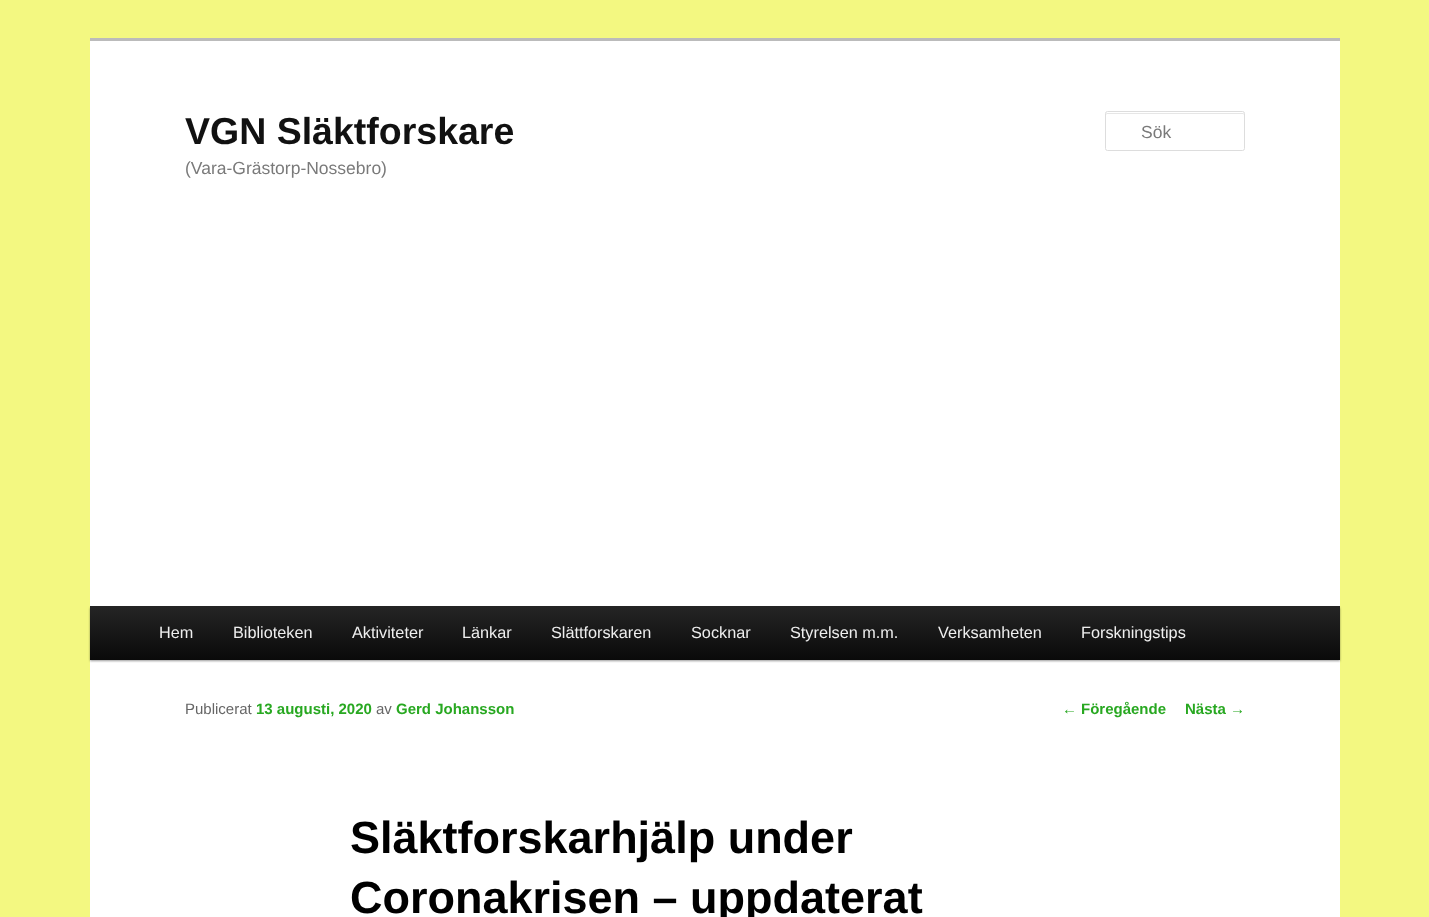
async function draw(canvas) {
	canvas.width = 1429;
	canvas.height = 917;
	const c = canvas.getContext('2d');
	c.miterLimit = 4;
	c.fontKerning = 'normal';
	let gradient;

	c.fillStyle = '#f3f881';
	c.fillRect(0, 0, 1429, 917);
	c.fillStyle = '#fff';
	c.fillRect(90, 41, 1250, 876);
	c.fillStyle = '#bbb';
	c.fillRect(90, 38, 1250, 3);
	c.font = 'bold 37.5px Liberation Sans';
	c.fillStyle = '#111';
	c.fillText('VGN Släktforskare', 185, 144);
	c.font = '17.5px Liberation Sans';
	c.fillStyle = '#7a7a7a';
	c.fillText('(Vara-Grästorp-Nossebro)', 185, 174);
	c.fillStyle = '#e6e6e6';
	c.beginPath();
	c.moveTo(1108, 114);
	c.lineTo(1242, 114);
	c.bezierCurveTo(1243, 114, 1244, 114, 1244, 115);
	c.bezierCurveTo(1244, 114, 1244, 113, 1243, 113);
	c.lineTo(1107, 113);
	c.bezierCurveTo(1106, 113, 1106, 114, 1106, 115);
	c.bezierCurveTo(1106, 114, 1107, 114, 1108, 114);
	c.closePath();
	c.fill();
	c.beginPath();
	c.roundRect(1105.5, 111.5, 139, 39, 2);
	c.strokeStyle = '#ddd';
	c.stroke();
	c.fillStyle = '#7a7a7a';
	c.fillText('Sök', 1141, 138);
	c.fillStyle = '#00000066';
	c.filter = 'blur(1px)';
	c.beginPath();
	c.rect(90, 608, 1250, 53);
	c.fill();
	c.filter = 'none';
	gradient = c.createLinearGradient(715, 606, 715, 660);
	gradient.addColorStop(0, '#252525');
	gradient.addColorStop(1, '#0a0a0a');
	c.fillStyle = gradient;
	c.fillRect(90, 606, 1250, 54);
	c.font = '16.25px Liberation Sans';
	c.fillStyle = '#eee';
	for (const [text, x, y] of [
		['Hem', 159, 638],
		['Biblioteken', 233, 638],
		['Aktiviteter', 352, 638],
		['Länkar', 462, 638],
		['Slättforskaren', 551, 638],
		['Socknar', 691, 638],
		['Styrelsen m.m.', 790, 638],
		['Verksamheten', 938, 638],
		['Forskningstips', 1081, 638],
	]) {
		c.fillText(text, x, y);
	}
	c.font = '15px Liberation Sans';
	c.fillStyle = '#666';
	c.fillText('Publicerat', 185, 714);
	c.font = 'bold 15px Liberation Sans';
	c.fillStyle = '#28a821';
	c.fillText('13 augusti, 2020', 256, 714);
	c.font = '15px Liberation Sans';
	c.fillStyle = '#666';
	c.fillText('av', 376, 714);
	c.font = 'bold 15px Liberation Sans';
	c.fillStyle = '#28a821';
	c.fillText('Gerd Johansson', 396, 714);
	c.font = 'bold 45px Liberation Sans';
	c.fillStyle = '#000';
	c.fillText('Släktforskarhjälp under', 350, 853);
	c.fillText('Coronakrisen – uppdaterat', 350, 913);
	c.font = '15px Liberation Sans';
	c.fillStyle = '#28a821';
	c.fillText('←', 1062, 714);
	c.font = 'bold 15px Liberation Sans';
	c.fillText('Föregående', 1081, 714);
	c.fillText('Nästa', 1185, 714);
	c.font = '15px Liberation Sans';
	c.fillText('→', 1230, 714);
}

draw(document.querySelector('canvas'));
